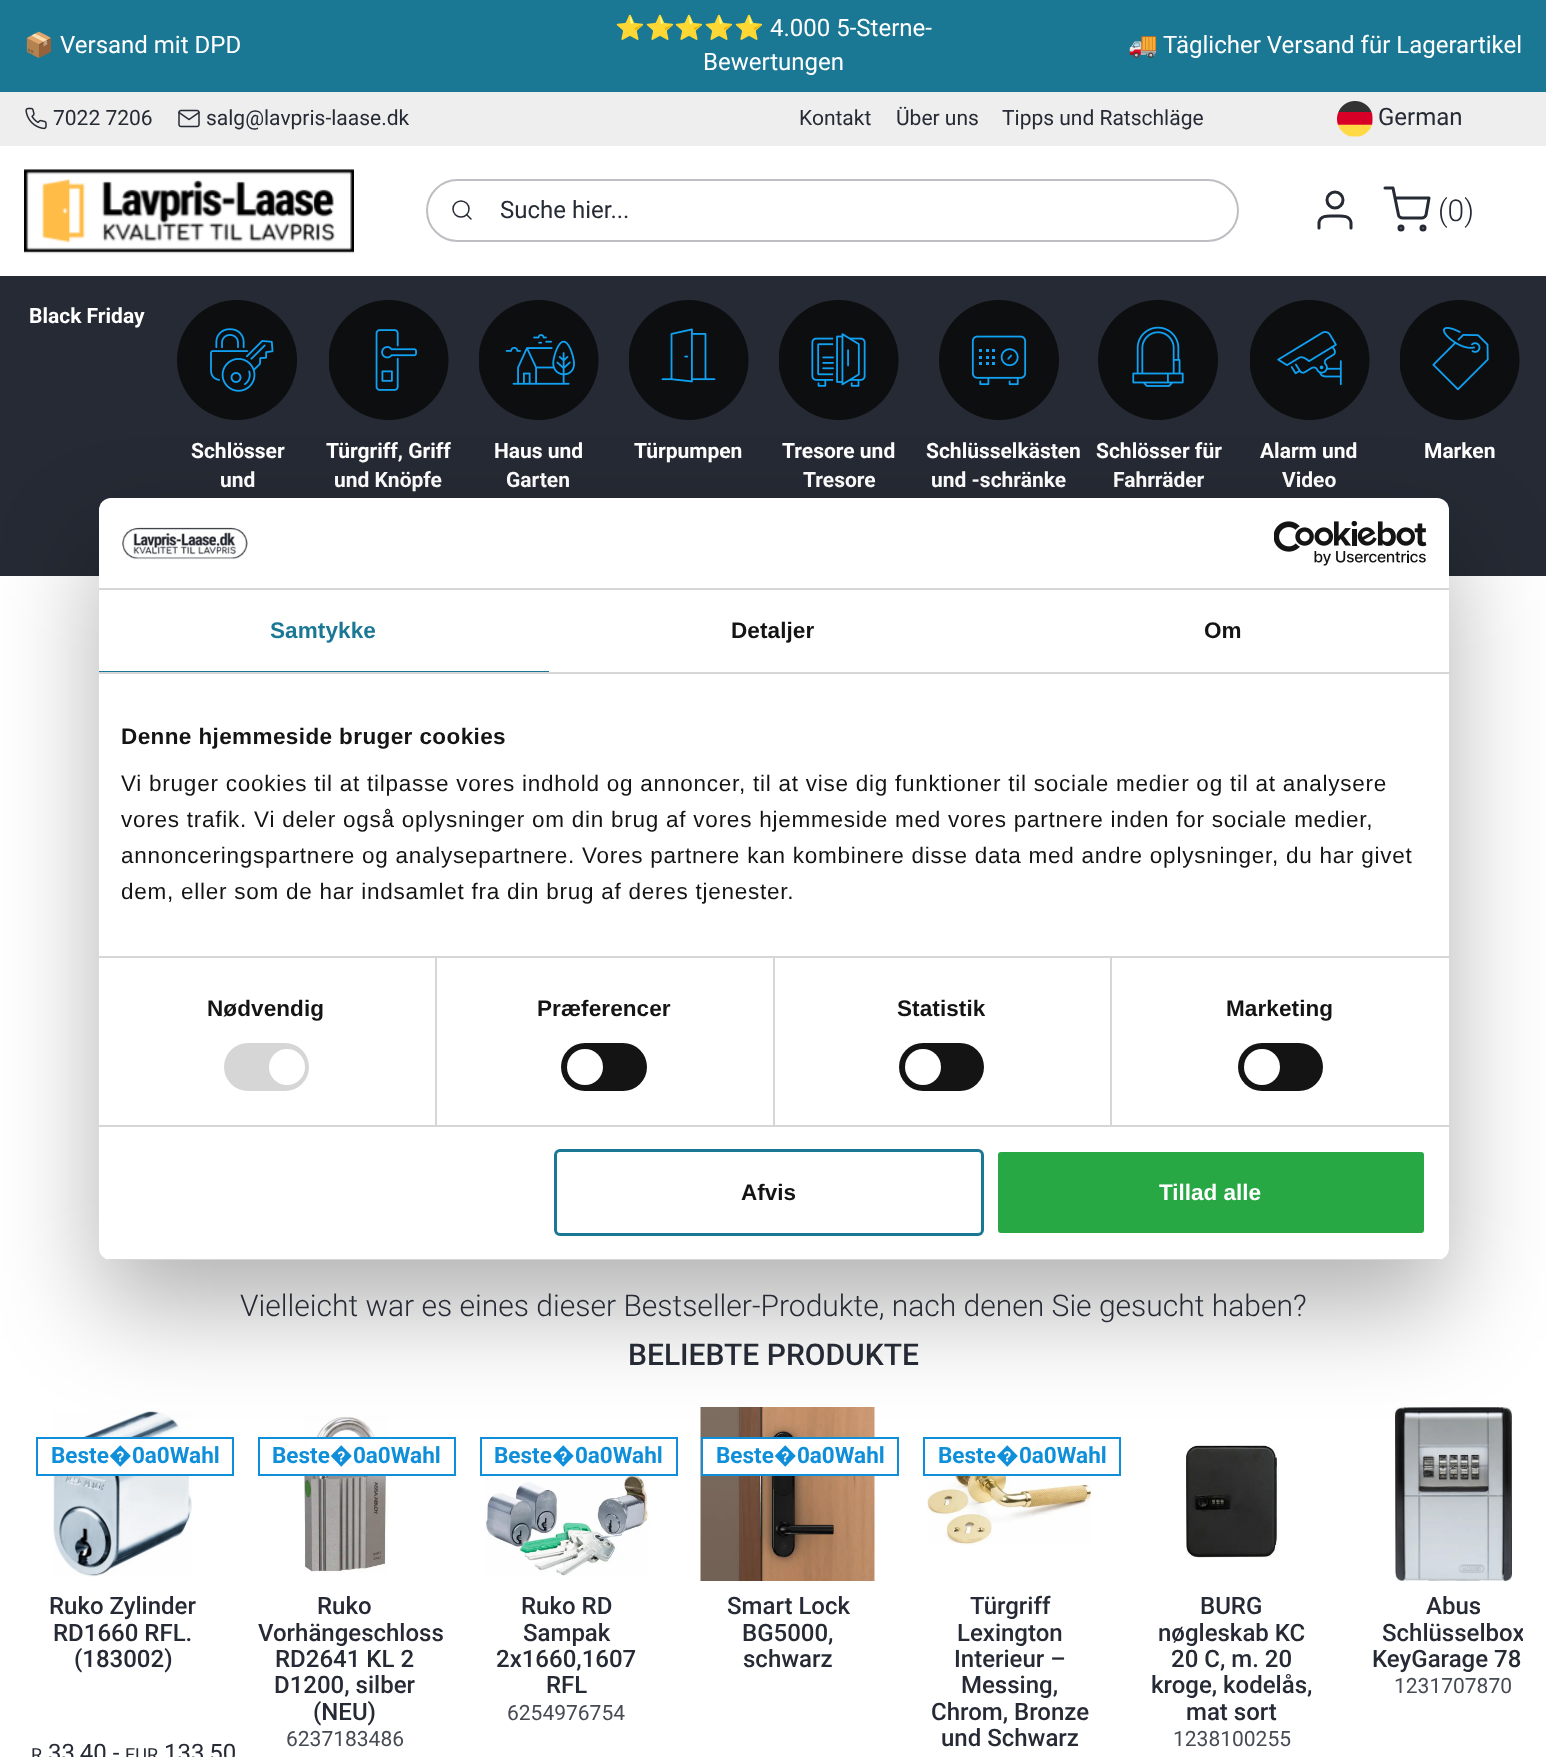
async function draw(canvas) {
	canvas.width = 1546;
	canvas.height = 1757;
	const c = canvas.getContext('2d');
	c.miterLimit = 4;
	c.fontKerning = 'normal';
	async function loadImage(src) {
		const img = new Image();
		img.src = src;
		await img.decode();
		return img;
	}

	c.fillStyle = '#fff';
	c.fillRect(0, 0, 1546, 1757);
	c.fillStyle = '#1b7895';
	c.fillRect(0, 0, 1546, 92);
	c.font = '24px Noto Color Emoji';
	c.fillStyle = '#fff';
	c.fillText('📦', 24, 53);
	c.font = '24px Roboto';
	c.fillText('Versand mit DPD', 60, 53);
	c.font = '24px Noto Color Emoji';
	c.fillText('⭐⭐⭐⭐⭐', 615, 36);
	c.font = '24px Roboto';
	c.fillText('4.000 5-Sterne-', 770, 36);
	c.fillText('Bewertungen', 703, 70);
	c.font = '24px Noto Color Emoji';
	c.fillText('🚚', 1128, 53);
	c.font = '24px Roboto';
	c.fillText('Täglicher Versand für Lagerartikel', 1163, 53);
	c.fillStyle = '#eee';
	c.fillRect(0, 92, 1546, 54);
	c.drawImage(await loadImage('img1.png'), 25, 107, 22, 23);
	c.font = '21px Roboto';
	c.fillStyle = '#252a34';
	c.fillText('7022 7206', 53, 125);
	c.drawImage(await loadImage('img2.png'), 178, 109, 22, 19);
	for (const [text, x, y] of [
		['salg@lavpris-laase.dk', 206, 125],
		['Kontakt', 799, 125],
		['Über uns', 896, 125],
		['Tipps und Ratschläge', 1002, 125],
	]) {
		c.fillText(text, x, y);
	}
	c.drawImage(await loadImage('img3.png'), 1337, 101, 36, 36);
	c.font = '24px Roboto';
	c.fillText('German', 1378, 125);
	c.drawImage(await loadImage('img4.png'), 24, 169, 330, 85);
	c.beginPath();
	c.roundRect(427, 180, 811, 61, 30.5);
	c.strokeStyle = '#bebfc2';
	c.lineWidth = 2;
	c.stroke();
	c.beginPath();
	c.arc(461, 209, 8, 0, 2 * Math.PI);
	c.strokeStyle = '#252a34';
	c.lineWidth = 1.5;
	c.stroke();
	c.beginPath();
	c.moveTo(471, 219);
	c.lineTo(466.5, 214.5);
	c.lineCap = 'round';
	c.lineJoin = 'round';
	c.stroke();
	c.fillText('Suche hier...', 500, 218);
	c.beginPath();
	c.moveTo(1351, 228);
	c.lineTo(1351, 222.5);
	c.bezierCurveTo(1349.5, 214.5, 1341, 216, 1335, 216);
	c.bezierCurveTo(1329, 216, 1320.5, 214.5, 1319, 222.5);
	c.lineTo(1319, 228);
	c.lineWidth = 3;
	c.stroke();
	c.beginPath();
	c.arc(1335, 200, 8, 0, 2 * Math.PI);
	c.stroke();
	c.beginPath();
	c.arc(1401, 228, 2, 0, 2 * Math.PI);
	c.stroke();
	c.beginPath();
	c.arc(1423, 228, 2, 0, 2 * Math.PI);
	c.stroke();
	c.beginPath();
	c.moveTo(1385, 188);
	c.lineTo(1393, 188);
	c.lineTo(1398.5, 215);
	c.bezierCurveTo(1398.5, 216.5, 1400.5, 218, 1402.5, 218);
	c.lineTo(1422, 218);
	c.bezierCurveTo(1423.5, 218, 1425.5, 216.5, 1426, 215);
	c.lineTo(1429, 198);
	c.lineTo(1395, 198);
	c.stroke();
	c.font = '300 30px Roboto';
	c.fillText('(0)', 1438, 221);
	c.fillRect(0, 276, 1546, 300);
	c.font = 'bold 21px Roboto';
	c.fillStyle = '#fff';
	c.fillText('Black Friday', 29, 323);
	c.drawImage(await loadImage('img5.png'), 177, 300, 120, 120);
	c.fillText('Schlösser', 191, 458);
	c.fillText('und', 220, 487);
	c.drawImage(await loadImage('img6.png'), 329, 300, 120, 120);
	c.fillText('Türgriff, Griff', 326, 458);
	c.fillText('und Knöpfe', 334, 487);
	c.drawImage(await loadImage('img7.png'), 479, 300, 120, 120);
	c.fillText('Haus und', 494, 458);
	c.fillText('Garten', 506, 487);
	c.drawImage(await loadImage('img8.png'), 629, 300, 120, 120);
	c.fillText('Türpumpen', 634, 458);
	c.drawImage(await loadImage('img9.png'), 779, 300, 120, 120);
	c.fillText('Tresore und', 782, 458);
	c.fillText('Tresore', 803, 487);
	c.drawImage(await loadImage('img10.png'), 939, 300, 120, 120);
	c.fillText('Schlüsselkästen', 926, 458);
	c.fillText('und -schränke', 931, 487);
	c.drawImage(await loadImage('img11.png'), 1098, 300, 120, 120);
	c.fillText('Schlösser für', 1096, 458);
	c.fillText('Fahrräder', 1113, 487);
	c.drawImage(await loadImage('img12.png'), 1250, 300, 120, 120);
	c.fillText('Alarm und', 1260, 458);
	c.fillText('Video', 1282, 487);
	c.drawImage(await loadImage('img13.png'), 1400, 300, 120, 120);
	c.fillText('Marken', 1424, 458);
	c.drawImage(await loadImage('img16.png'), 53, 1411, 139, 166);
	c.fillRect(53, 1439, 139, 35);
	c.strokeStyle = '#0f8fd9';
	c.lineWidth = 2;
	c.lineJoin = 'miter';
	c.strokeRect(37, 1438, 196, 37);
	c.drawImage(await loadImage('img17.png'), 304, 1416, 85, 157);
	c.fillRect(309, 1439, 78, 35);
	c.strokeRect(259, 1438, 196, 37);
	c.strokeRect(481, 1438, 196, 37);
	c.drawImage(await loadImage('img19.png'), 700, 1407, 175, 174);
	c.fillRect(703, 1439, 172, 35);
	c.strokeRect(702, 1438, 196, 37);
	c.strokeRect(924, 1438, 196, 37);
	c.drawImage(await loadImage('img21.png'), 1186, 1445, 93, 113);
	c.drawImage(await loadImage('img22.png'), 1395, 1407, 117, 174);
	c.fillStyle = '#0000004d';
	c.filter = 'blur(51px)';
	c.beginPath();
	c.roundRect(99, 546, 1350, 762, 12);
	c.fill();
	c.filter = 'none';
	c.fillStyle = '#fff';
	c.beginPath();
	c.roundRect(99, 498, 1350, 762, 12);
	c.fill();
	c.fillStyle = '#d6d6d6';
	c.fillRect(99, 588, 1350, 2);
	c.drawImage(await loadImage('img14.png'), 122, 527, 126, 33);
	c.drawImage(await loadImage('img15.png'), 1274, 521, 153, 45);
	c.fillRect(99, 672, 1350, 2);
	c.fillStyle = '#1b7895';
	c.fillRect(99, 671, 450, 1);
	c.letterSpacing = '0.1px';
	c.font = 'bold 22.5px Liberation Sans';
	c.fillText('Samtykke', 270, 638);
	c.fillStyle = '#141414';
	c.fillText('Detaljer', 731, 638);
	c.fillText('Om', 1204, 638);
	for (const [x, y, w, h, color] of [
		[435, 957, 2, 168, '#d6d6d6'],
		[773, 957, 2, 168, '#d6d6d6'],
		[1110, 957, 2, 168, '#d6d6d6'],
		[99, 956, 1350, 2, '#d6d6d6'],
	]) {
		c.fillStyle = color;
		c.fillRect(x, y, w, h);
	}
	c.letterSpacing = '0.4px';
	c.fillStyle = '#141414';
	c.fillText('Denne hjemmeside bruger cookies', 121, 744);
	c.letterSpacing = '0.75px';
	c.font = '22.5px Liberation Sans';
	for (const [text, x, y] of [
		['Vi bruger cookies til at tilpasse vores indhold og annoncer, til at vise dig funktioner til sociale medier og til at analysere', 121, 791],
		['vores trafik. Vi deler også oplysninger om din brug af vores hjemmeside med vores partnere inden for sociale medier,', 121, 827],
		['annonceringspartnere og analysepartnere. Vores partnere kan kombinere disse data med andre oplysninger, du har givet', 121, 863],
		['dem, eller som de har indsamlet fra din brug af deres tjenester.', 121, 899],
	]) {
		c.fillText(text, x, y);
	}
	c.fillStyle = '#d6d6d6';
	c.fillRect(99, 1125, 1350, 2);
	c.letterSpacing = '0.1px';
	c.font = 'bold 22.5px Liberation Sans';
	c.fillStyle = '#141414';
	c.fillText('Nødvendig', 207, 1016);
	c.fillStyle = '#d6d6d6';
	c.beginPath();
	c.roundRect(224, 1043, 85, 48, 24);
	c.fill();
	c.fillStyle = '#fff';
	c.beginPath();
	c.arc(287, 1067, 18, 0, 2 * Math.PI);
	c.fill();
	c.fillStyle = '#141414';
	c.fillText('Præferencer', 537, 1016);
	c.beginPath();
	c.roundRect(561, 1043, 86, 48, 24);
	c.fill();
	c.fillStyle = '#fff';
	c.beginPath();
	c.arc(585, 1067, 18, 0, 2 * Math.PI);
	c.fill();
	c.fillStyle = '#141414';
	c.fillText('Statistik', 897, 1016);
	c.beginPath();
	c.roundRect(899, 1043, 85, 48, 24);
	c.fill();
	c.fillStyle = '#fff';
	c.beginPath();
	c.arc(923, 1067, 18, 0, 2 * Math.PI);
	c.fill();
	c.fillStyle = '#141414';
	c.fillText('Marketing', 1226, 1016);
	c.beginPath();
	c.roundRect(1238, 1043, 85, 48, 24);
	c.fill();
	c.fillStyle = '#fff';
	c.beginPath();
	c.arc(1262, 1067, 18, 0, 2 * Math.PI);
	c.fill();
	c.save();
	c.beginPath();
	c.roundRect(99, 498, 1350, 762, 12);
	c.clip();
	c.fillStyle = '#d6d6d6';
	c.fillRect(99, 1259, 1350, 1);
	c.restore();
	c.beginPath();
	c.roundRect(555.5, 1150.5, 427, 84, 4.5);
	c.strokeStyle = '#1b7895';
	c.lineWidth = 3;
	c.stroke();
	c.letterSpacing = '0px';
	c.fillStyle = '#141414';
	c.fillText('Afvis', 741, 1200);
	c.fillStyle = '#28a745';
	c.beginPath();
	c.roundRect(996.5, 1150.5, 429, 84, 4.5);
	c.fill();
	c.strokeStyle = '#fff';
	c.stroke();
	c.fillStyle = '#fff';
	c.fillText('Tillad alle', 1159, 1200);
	c.font = '300 30px Roboto';
	c.fillStyle = '#252a34';
	c.fillText('Vielleicht war es eines dieser Bestseller-Produkte, nach denen Sie gesucht haben?', 240, 1316);
	c.font = '500 30px Roboto';
	c.fillText('BELIEBTE PRODUKTE', 628, 1365);
	c.font = 'bold 22.5px Roboto';
	c.fillStyle = '#0f8fd9';
	c.fillText('Beste�0a0Wahl', 51, 1463);
	c.font = '500 24px Roboto';
	c.fillStyle = '#252a34';
	for (const [text, x, y] of [
		['Ruko Zylinder', 49, 1614],
		['RD1660 RFL.', 53, 1641],
		['(183002)', 74, 1667],
	]) {
		c.fillText(text, x, y);
	}
	c.font = '18px Roboto';
	c.fillText('R', 31, 1761);
	c.font = '24px Roboto';
	c.fillText('33,40 -', 48, 1761);
	c.font = '18px Roboto';
	c.fillText('EUR', 125, 1761);
	c.font = '24px Roboto';
	c.fillText('133,50', 164, 1761);
	c.font = 'bold 22.5px Roboto';
	c.fillStyle = '#0f8fd9';
	c.fillText('Beste�0a0Wahl', 272, 1463);
	c.font = '500 24px Roboto';
	c.fillStyle = '#252a34';
	for (const [text, x, y] of [
		['Ruko', 317, 1614],
		['Vorhängeschloss', 258, 1641],
		['RD2641 KL 2', 275, 1667],
		['D1200, silber', 274, 1693],
		['(NEU)', 313, 1720],
	]) {
		c.fillText(text, x, y);
	}
	c.font = '21px Roboto';
	c.fillStyle = '#464a52';
	c.fillText('6237183486', 286, 1746);
	c.font = 'bold 22.5px Roboto';
	c.fillStyle = '#0f8fd9';
	c.fillText('Beste�0a0Wahl', 494, 1463);
	c.drawImage(await loadImage('img18.png'), 485, 1476, 164, 100);
	c.font = '500 24px Roboto';
	c.fillStyle = '#252a34';
	for (const [text, x, y] of [
		['Ruko RD', 521, 1614],
		['Sampak', 523, 1641],
		['2x1660,1607', 496, 1667],
		['RFL', 546, 1693],
	]) {
		c.fillText(text, x, y);
	}
	c.font = '21px Roboto';
	c.fillStyle = '#464a52';
	c.fillText('6254976754', 507, 1720);
	c.font = 'bold 22.5px Roboto';
	c.fillStyle = '#0f8fd9';
	c.fillText('Beste�0a0Wahl', 716, 1463);
	c.font = '500 24px Roboto';
	c.fillStyle = '#252a34';
	for (const [text, x, y] of [
		['Smart Lock', 727, 1614],
		['BG5000,', 742, 1641],
		['schwarz', 743, 1667],
	]) {
		c.fillText(text, x, y);
	}
	c.font = 'bold 22.5px Roboto';
	c.fillStyle = '#0f8fd9';
	c.fillText('Beste�0a0Wahl', 938, 1463);
	c.drawImage(await loadImage('img20.png'), 927, 1476, 164, 69);
	c.font = '500 24px Roboto';
	c.fillStyle = '#252a34';
	for (const [text, x, y] of [
		['Türgriff', 970, 1614],
		['Lexington', 957, 1641],
		['Interieur –', 954, 1667],
		['Messing,', 961, 1693],
		['Chrom, Bronze', 931, 1720],
		['und Schwarz', 941, 1746],
		['BURG', 1200, 1614],
		['nøgleskab KC', 1158, 1641],
		['20 C, m. 20', 1171, 1667],
		['kroge, kodelås,', 1151, 1693],
		['mat sort', 1186, 1720],
	]) {
		c.fillText(text, x, y);
	}
	c.font = '21px Roboto';
	c.fillStyle = '#464a52';
	c.fillText('1238100255', 1173, 1746);
	c.font = '500 24px Roboto';
	c.fillStyle = '#252a34';
	c.fillText('Abus', 1426, 1614);
	c.save();
	c.beginPath();
	c.rect(24, 1395, 1499, 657);
	c.clip();
	c.fillText('Schlüsselbox', 1382, 1641);
	c.restore();
	c.fillText('KeyGarage 78', 1372, 1667);
	c.font = '21px Roboto';
	c.fillStyle = '#464a52';
	c.fillText('1231707870', 1394, 1693);
}

draw(document.querySelector('canvas'));
